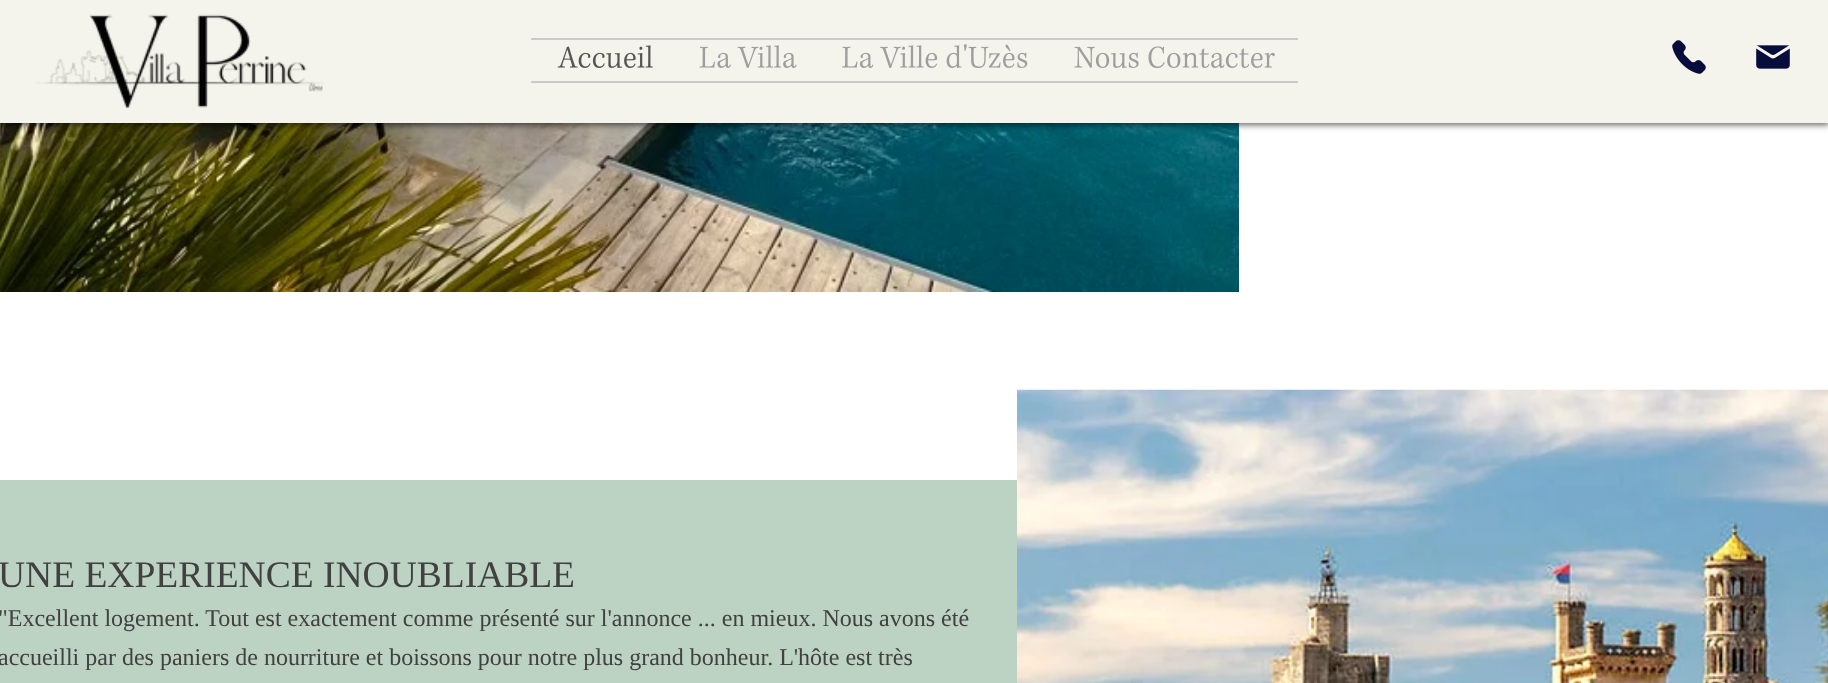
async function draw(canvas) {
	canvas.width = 1828;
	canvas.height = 683;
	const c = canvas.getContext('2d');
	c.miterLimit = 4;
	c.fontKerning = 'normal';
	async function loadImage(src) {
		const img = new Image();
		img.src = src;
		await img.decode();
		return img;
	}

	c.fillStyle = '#fff';
	c.fillRect(0, 0, 1828, 683);
	c.drawImage(await loadImage('img8.png'), 0, 123, 1239, 169);
	c.fillStyle = '#00000099';
	c.filter = 'blur(3px)';
	c.beginPath();
	c.rect(0, 2, 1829, 123);
	c.fill();
	c.filter = 'none';
	c.fillStyle = '#f4f4ed';
	c.fillRect(0, 0, 1828, 123);
	c.drawImage(await loadImage('img1.png'), 36, 14, 288, 95);
	c.fillStyle = '#cacaca';
	c.fillRect(531, 38, 767, 2);
	c.fillRect(531, 81, 767, 2);
	c.drawImage(await loadImage('img2.png'), 557, 45, 96, 23);
	c.drawImage(await loadImage('img3.png'), 699, 45, 98, 23);
	c.drawImage(await loadImage('img4.png'), 842, 44, 186, 24);
	c.drawImage(await loadImage('img5.png'), 1074, 46, 201, 22);
	c.drawImage(await loadImage('img6.png'), 1672, 40, 34, 34);
	c.drawImage(await loadImage('img7.png'), 1756, 45, 34, 24);
	c.fillStyle = '#bcd2c2';
	c.fillRect(0, 480, 1017, 203);
	c.font = '37.5px Liberation Serif';
	c.fillStyle = '#414141';
	c.fillText('UNE EXPERIENCE INOUBLIABLE', -2, 587);
	c.font = '24px Liberation Serif';
	c.fillText('"Excellent logement. Tout est exactement comme présenté sur l\'annonce ... en mieux. Nous avons été', -2, 626);
	c.fillText('accueilli par des paniers de nourriture et boissons pour notre plus grand bonheur. L\'hôte est très', -2, 665);
	c.drawImage(await loadImage('img9.png'), 1017, 389, 811, 294);
}

draw(document.querySelector('canvas'));
